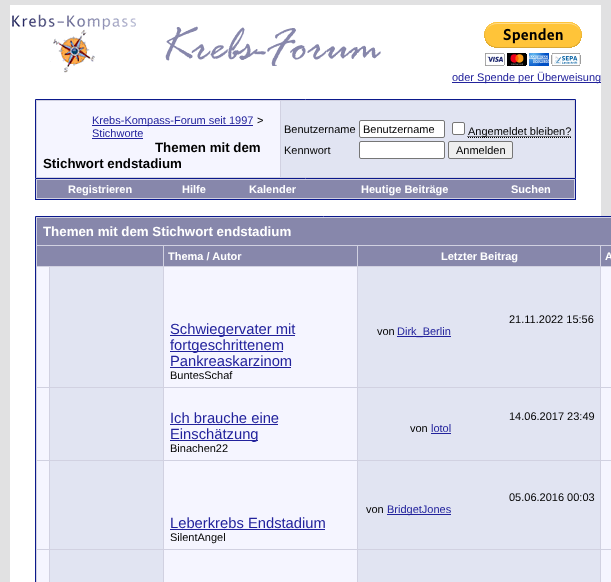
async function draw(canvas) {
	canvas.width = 611;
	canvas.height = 582;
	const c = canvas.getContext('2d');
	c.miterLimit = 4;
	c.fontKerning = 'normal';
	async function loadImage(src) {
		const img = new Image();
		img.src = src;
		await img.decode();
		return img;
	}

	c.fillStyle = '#e1e1e2';
	c.fillRect(0, 0, 611, 582);
	c.fillStyle = '#fff';
	c.fillRect(10, 5, 591, 577);
	c.drawImage(await loadImage('img1.png'), 11, 14, 125, 59);
	c.drawImage(await loadImage('img2.png'), 165, 26, 216, 40);
	c.drawImage(await loadImage('img3.png'), 484, 22, 98, 44);
	c.fillStyle = '#22229c';
	c.fillRect(452, 82, 149, 1);
	c.font = '11px Liberation Sans';
	c.fillText('oder Spende per Überweisung', 452, 81);
	c.fillStyle = '#d1d1e1';
	c.beginPath();
	c.rect(35.5, 99.5, 540, 79);
	c.fill();
	c.strokeStyle = '#0b198c';
	c.stroke();
	c.fillStyle = '#f5f5ff';
	c.fillRect(37, 101, 243, 76);
	c.fillStyle = '#22229c';
	c.fillRect(92, 125, 161, 1);
	c.fillText('Krebs-Kompass-Forum seit 1997', 92, 124);
	c.fillStyle = '#000';
	c.fillText('>', 257, 124);
	c.fillStyle = '#22229c';
	c.fillText('Stichworte', 92, 137);
	c.fillRect(92, 138, 51, 1);
	c.font = 'bold 13.3px Liberation Sans';
	c.fillStyle = '#000';
	c.fillText('Themen mit dem', 155, 152);
	c.fillText('Stichwort endstadium', 43, 168);
	c.fillStyle = '#e1e4f2';
	c.fillRect(281, 101, 293, 76);
	c.font = '11px Liberation Sans';
	c.fillStyle = '#000';
	c.fillText('Benutzername', 284, 133);
	c.fillStyle = '#fff';
	c.beginPath();
	c.roundRect(359.5, 120.5, 85, 17, 1.5);
	c.fill();
	c.strokeStyle = '#767676';
	c.stroke();
	c.fillStyle = '#000';
	c.fillText('Benutzername', 363, 133);
	c.fillStyle = '#fff';
	c.beginPath();
	c.roundRect(452.5, 122.5, 12, 12, 1.5);
	c.fill();
	c.stroke();
	c.beginPath();
	c.moveTo(468, 137.5);
	c.lineTo(571, 137.5);
	c.strokeStyle = '#000';
	c.setLineDash([1, 1]);
	c.stroke();
	c.beginPath();
	c.moveTo(467.5, 136.5);
	c.lineTo(571, 136.5);
	c.stroke();
	c.fillStyle = '#000';
	c.fillText('Angemeldet bleiben?', 468, 135);
	c.fillText('Kennwort', 284, 154);
	c.fillStyle = '#fff';
	c.beginPath();
	c.roundRect(359.5, 141.5, 85, 17, 1.5);
	c.fill();
	c.strokeStyle = '#767676';
	c.setLineDash([]);
	c.stroke();
	c.fillStyle = '#efefef';
	c.beginPath();
	c.roundRect(448.5, 141.5, 64, 17, 1.5);
	c.fill();
	c.stroke();
	c.fillStyle = '#000';
	c.fillText('Anmelden', 456, 154);
	for (const [x, y, w, h, color] of [
		[36, 179, 539, 20, '#d1d1e1'],
		[575, 179, 1, 21, '#0b198c'],
		[35, 199, 541, 1, '#0b198c'],
		[35, 179, 1, 21, '#0b198c'],
		[37, 180, 537, 18, '#8787ab'],
	]) {
		c.fillStyle = color;
		c.fillRect(x, y, w, h);
	}
	c.font = 'bold 11px Liberation Sans';
	c.fillStyle = '#fff';
	for (const [text, x, y] of [
		['Registrieren', 68, 193],
		['Hilfe', 182, 193],
		['Kalender', 249, 193],
		['Heutige Beiträge', 361, 193],
		['Suchen', 511, 193],
	]) {
		c.fillText(text, x, y);
	}
	c.fillStyle = '#d1d1e1';
	c.beginPath();
	c.rect(35.5, 216.5, 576, 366);
	c.fill();
	c.strokeStyle = '#0b198c';
	c.stroke();
	c.fillStyle = '#8787ab';
	c.fillRect(37, 218, 574, 27);
	c.font = 'bold 13.3px Liberation Sans';
	c.fillStyle = '#fff';
	c.fillText('Themen mit dem Stichwort endstadium', 43, 236);
	c.fillStyle = '#8787ab';
	c.fillRect(37, 246, 126, 20);
	c.fillRect(164, 246, 193, 20);
	c.font = 'bold 11px Liberation Sans';
	c.fillStyle = '#fff';
	c.fillText('Thema / Autor', 168, 260);
	c.fillStyle = '#8787ab';
	c.fillRect(358, 246, 242, 20);
	c.fillStyle = '#fff';
	c.fillText('Letzter Beitrag', 441, 260);
	c.fillStyle = '#8787ab';
	c.fillRect(601, 246, 10, 20);
	c.fillStyle = '#fff';
	c.fillText('A', 605, 260);
	for (const [x, y, w, h, color] of [
		[37, 267, 12, 120, '#f5f5ff'],
		[50, 267, 113, 120, '#e1e4f2'],
		[164, 267, 193, 120, '#f5f5ff'],
		[170, 335, 125, 1, '#22229c'],
	]) {
		c.fillStyle = color;
		c.fillRect(x, y, w, h);
	}
	c.font = '14.75px Liberation Sans';
	c.fillText('Schwiegervater mit', 170, 334);
	c.fillRect(170, 351, 113, 1);
	c.fillText('fortgeschrittenem', 170, 350);
	c.fillText('Pankreaskarzinom', 170, 366);
	c.fillRect(170, 367, 121, 1);
	c.font = '11px Liberation Sans';
	c.fillStyle = '#000';
	c.fillText('BuntesSchaf', 170, 379);
	c.fillStyle = '#e1e4f2';
	c.fillRect(358, 267, 242, 120);
	c.fillStyle = '#000';
	c.fillText('21.11.2022 15:56', 509, 323);
	c.fillText('von', 377, 335);
	c.fillStyle = '#22229c';
	c.fillRect(397, 336, 54, 1);
	c.fillText('Dirk_Berlin', 397, 335);
	for (const [x, y, w, h, color] of [
		[601, 267, 10, 120, '#f5f5ff'],
		[37, 388, 12, 72, '#f5f5ff'],
		[50, 388, 113, 72, '#e1e4f2'],
		[164, 388, 193, 72, '#f5f5ff'],
	]) {
		c.fillStyle = color;
		c.fillRect(x, y, w, h);
	}
	c.font = '14.75px Liberation Sans';
	c.fillStyle = '#22229c';
	c.fillText('Ich brauche eine', 170, 423);
	c.fillRect(170, 424, 108, 1);
	c.fillRect(170, 440, 88, 1);
	c.fillText('Einschätzung', 170, 439);
	c.font = '11px Liberation Sans';
	c.fillStyle = '#000';
	c.fillText('Binachen22', 170, 452);
	c.fillStyle = '#e1e4f2';
	c.fillRect(358, 388, 242, 72);
	c.fillStyle = '#000';
	c.fillText('14.06.2017 23:49', 509, 420);
	c.fillText('von', 410, 432);
	c.fillStyle = '#22229c';
	c.fillText('lotol', 431, 432);
	for (const [x, y, w, h, color] of [
		[431, 433, 20, 1, '#22229c'],
		[601, 388, 10, 72, '#f5f5ff'],
		[37, 461, 12, 88, '#f5f5ff'],
		[50, 461, 113, 88, '#e1e4f2'],
		[358, 461, 242, 88, '#e1e4f2'],
	]) {
		c.fillStyle = color;
		c.fillRect(x, y, w, h);
	}
	c.fillStyle = '#000';
	c.fillText('05.06.2016 00:03', 509, 501);
	c.fillText('von', 366, 513);
	c.fillStyle = '#22229c';
	c.fillRect(387, 514, 64, 1);
	c.fillText('BridgetJones', 387, 513);
	c.fillStyle = '#f5f5ff';
	c.fillRect(601, 461, 10, 88);
	c.fillRect(164, 461, 193, 88);
	c.font = '14.75px Liberation Sans';
	c.fillStyle = '#22229c';
	c.fillText('Leberkrebs Endstadium', 170, 528);
	c.fillRect(170, 529, 155, 1);
	c.font = '11px Liberation Sans';
	c.fillStyle = '#000';
	c.fillText('SilentAngel', 170, 541);
	for (const [x, y, w, h, color] of [
		[37, 550, 12, 32, '#f5f5ff'],
		[50, 550, 113, 32, '#e1e4f2'],
		[164, 550, 193, 32, '#f5f5ff'],
		[358, 550, 242, 32, '#e1e4f2'],
		[601, 550, 10, 32, '#f5f5ff'],
	]) {
		c.fillStyle = color;
		c.fillRect(x, y, w, h);
	}
}

draw(document.querySelector('canvas'));
